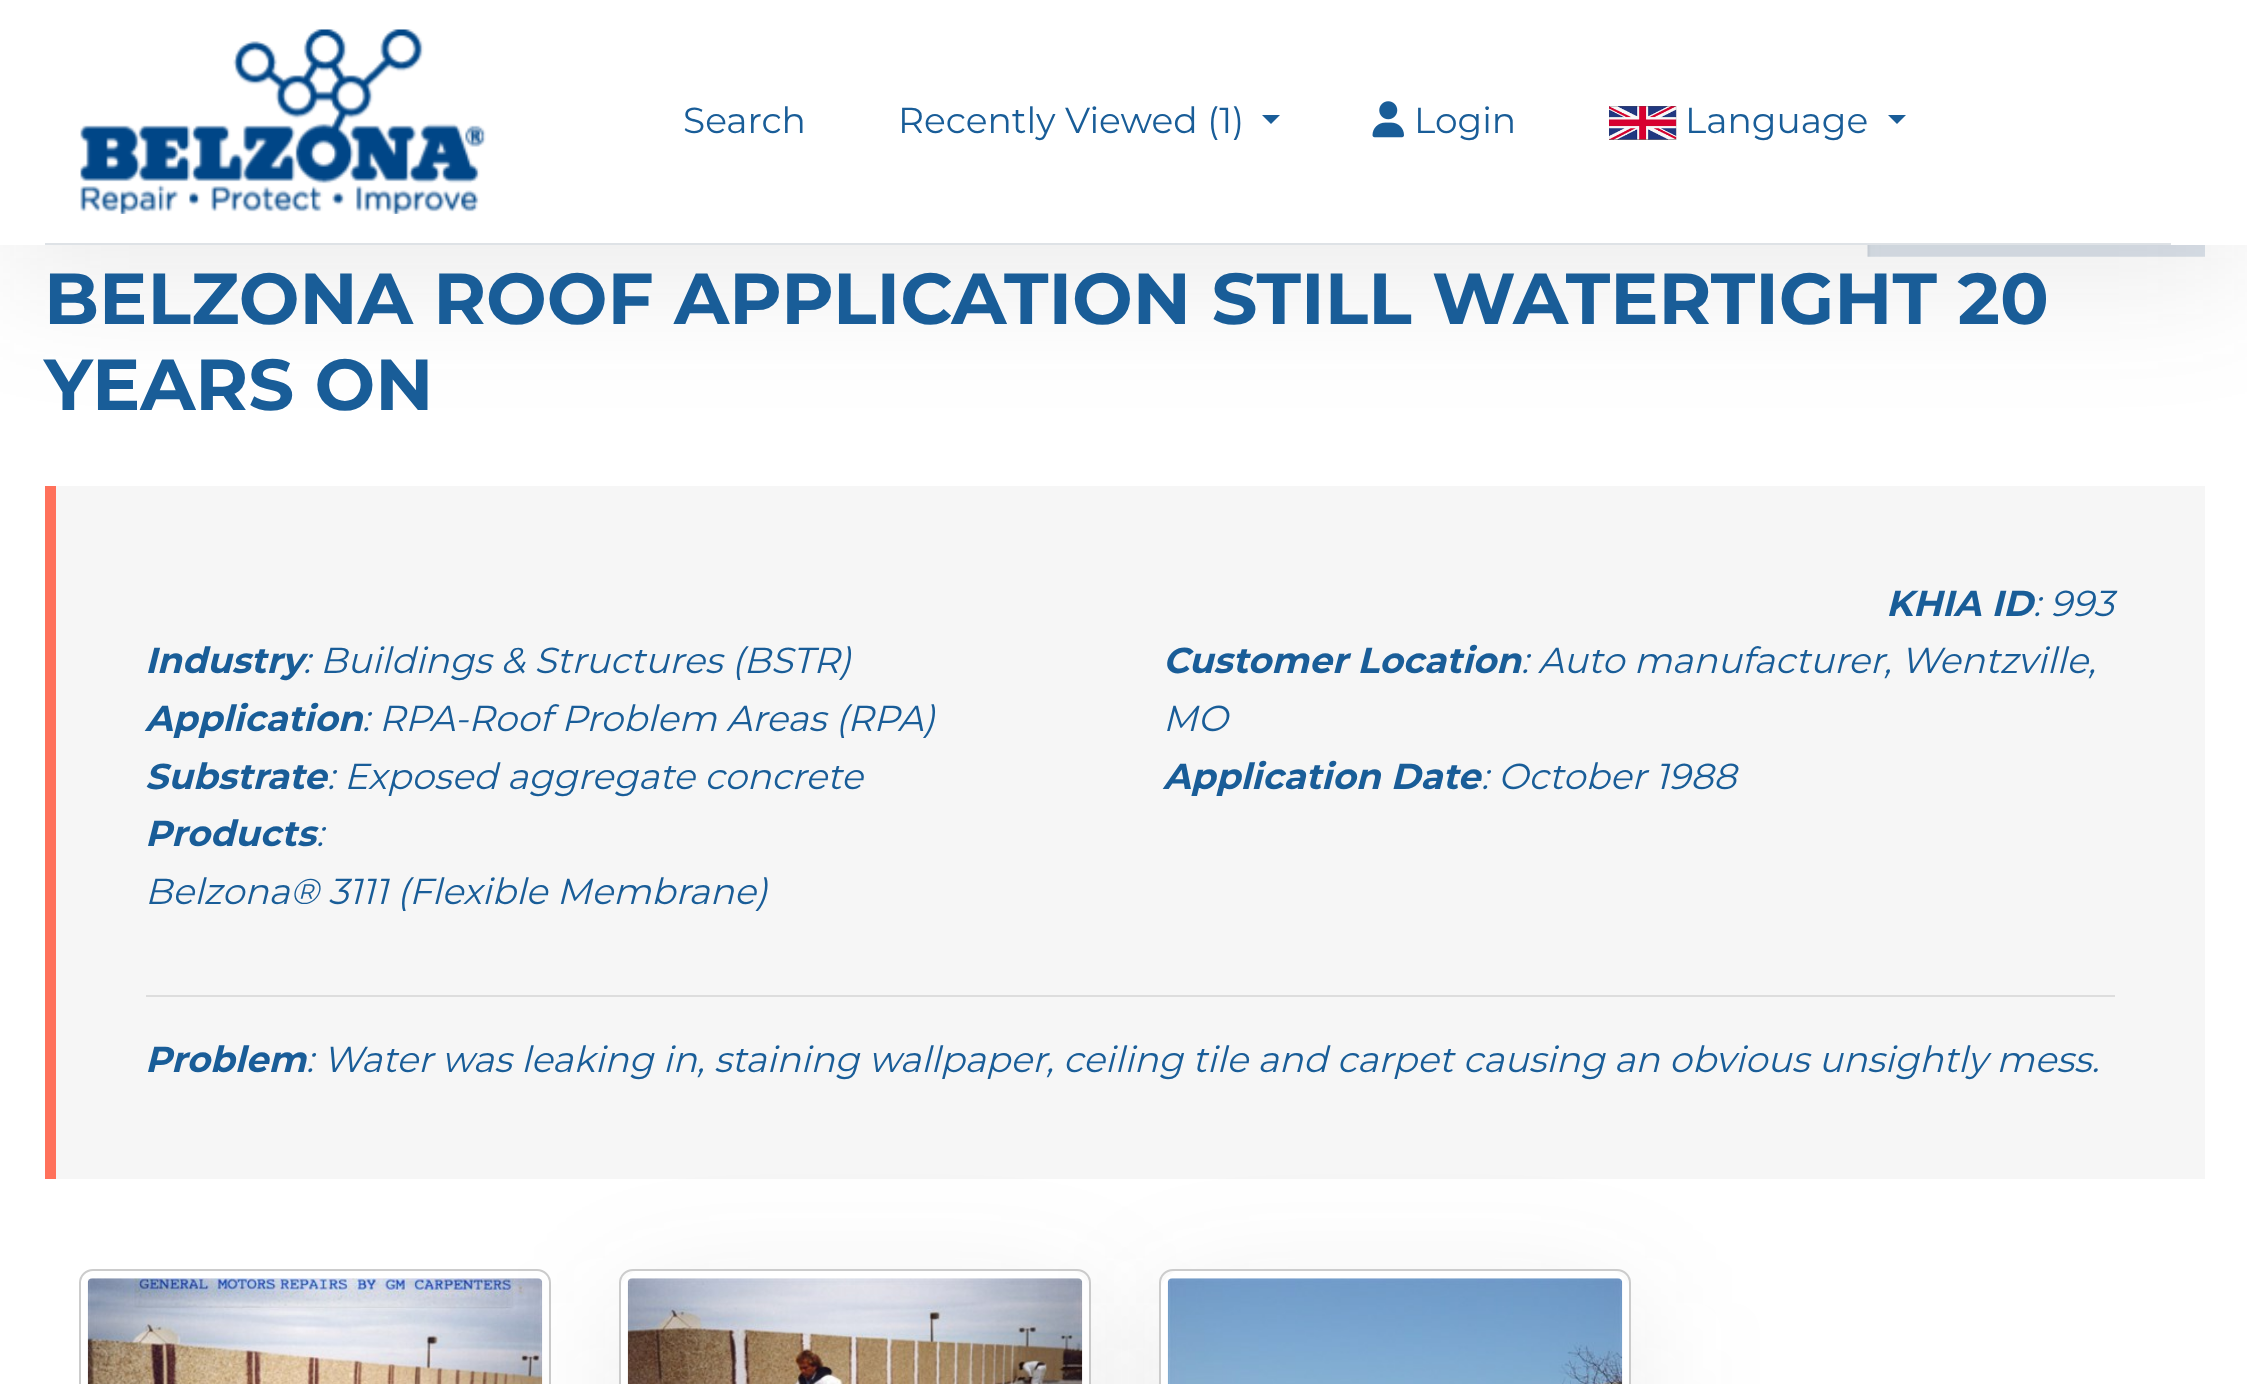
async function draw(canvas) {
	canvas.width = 2247;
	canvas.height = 1384;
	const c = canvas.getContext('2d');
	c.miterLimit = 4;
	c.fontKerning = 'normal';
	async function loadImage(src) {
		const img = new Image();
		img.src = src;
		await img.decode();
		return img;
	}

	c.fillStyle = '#fff';
	c.fillRect(0, 0, 2247, 1384);
	c.drawImage(await loadImage('img4.png'), 1867, 245, 338, 12);
	c.fillStyle = '#3e3e3e1a';
	c.filter = 'blur(67.5px)';
	c.beginPath();
	c.rect(0, 34, 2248, 245);
	c.fill();
	c.filter = 'none';
	c.fillStyle = '#fff';
	c.fillRect(0, 0, 2247, 245);
	c.fillStyle = '#dee2e6';
	c.fillRect(45, 243, 2126, 2);
	c.drawImage(await loadImage('img1.png'), 80, 29, 406, 185);
	c.font = '36px Montserrat';
	c.fillStyle = '#195d98';
	c.fillText('Search', 683, 133);
	c.fillText('Recently Viewed (1)', 898, 133);
	c.beginPath();
	c.moveTo(1262, 115);
	c.lineTo(1280, 115);
	c.lineTo(1271, 124);
	c.closePath();
	c.fill();
	c.drawImage(await loadImage('img2.png'), 1372, 101, 32, 37);
	c.fillText('Login', 1414, 133);
	c.drawImage(await loadImage('img3.png'), 1609, 106, 68, 34);
	c.fillText('Language', 1685, 133);
	c.beginPath();
	c.moveTo(1888, 115);
	c.lineTo(1906, 115);
	c.lineTo(1897, 124);
	c.closePath();
	c.fill();
	c.font = 'bold 72px Montserrat';
	c.fillText('BELZONA ROOF APPLICATION STILL WATERTIGHT 20', 44, 324);
	c.fillText('YEARS ON', 44, 410);
	c.fillStyle = '#f6f6f6';
	c.fillRect(56, 486, 2149, 693);
	c.fillStyle = '#ff715b';
	c.fillRect(45, 486, 11, 693);
	c.font = 'italic bold 36px Montserrat';
	c.fillStyle = '#195d98';
	c.fillText('KHIA ID', 1886, 616);
	c.font = 'italic 36px Montserrat';
	c.fillText(': 993', 2033, 616);
	c.font = 'italic bold 36px Montserrat';
	c.fillText('Industry', 145, 673);
	c.font = 'italic 36px Montserrat';
	c.fillText(': Buildings & Structures (BSTR)', 303, 673);
	c.font = 'italic bold 36px Montserrat';
	c.fillText('Application', 145, 731);
	c.font = 'italic 36px Montserrat';
	c.fillText(': RPA-Roof Problem Areas (RPA)', 362, 731);
	c.font = 'italic bold 36px Montserrat';
	c.fillText('Substrate', 145, 789);
	c.font = 'italic 36px Montserrat';
	c.fillText(': Exposed aggregate concrete', 327, 789);
	c.font = 'italic bold 36px Montserrat';
	c.fillText('Customer Location', 1163, 673);
	c.font = 'italic 36px Montserrat';
	c.fillText(': Auto manufacturer, Wentzville,', 1521, 673);
	c.fillText('MO', 1163, 731);
	c.font = 'italic bold 36px Montserrat';
	c.fillText('Application Date', 1163, 789);
	c.font = 'italic 36px Montserrat';
	c.fillText(': October 1988', 1481, 789);
	c.font = 'italic bold 36px Montserrat';
	c.fillText('Products', 145, 846);
	c.font = 'italic 36px Montserrat';
	c.fillText(':', 316, 846);
	c.fillText('Belzona® 3111 (Flexible Membrane)', 145, 904);
	c.fillStyle = '#ddd';
	c.fillRect(146, 995, 1969, 2);
	c.font = 'italic bold 36px Montserrat';
	c.fillStyle = '#195d98';
	c.fillText('Problem', 145, 1072);
	c.font = 'italic 36px Montserrat';
	c.fillText(': Water was leaking in, staining wallpaper, ceiling tile and carpet causing an obvious unsightly mess.', 306, 1072);
	c.beginPath();
	c.roundRect(80, 1270, 470, 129, 13);
	c.strokeStyle = '#ccc';
	c.lineWidth = 2;
	c.stroke();
	c.drawImage(await loadImage('img5.png'), 87, 1278, 456, 106);
	c.fillStyle = '#3e3e3e1a';
	c.filter = 'blur(67.5px)';
	c.beginPath();
	c.roundRect(619, 1303, 472, 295, 27);
	c.fill();
	c.filter = 'none';
	c.fillStyle = '#fff';
	c.beginPath();
	c.roundRect(619, 1269, 472, 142, 27);
	c.fill();
	c.beginPath();
	c.roundRect(620, 1270, 470, 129, 13);
	c.stroke();
	c.drawImage(await loadImage('img6.png'), 627, 1278, 456, 106);
	c.fillStyle = '#3e3e3e1a';
	c.filter = 'blur(67.5px)';
	c.beginPath();
	c.roundRect(1159, 1303, 472, 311, 27);
	c.fill();
	c.filter = 'none';
	c.fillStyle = '#fff';
	c.beginPath();
	c.roundRect(1159, 1269, 472, 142, 27);
	c.fill();
	c.beginPath();
	c.roundRect(1160, 1270, 470, 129, 13);
	c.stroke();
	c.drawImage(await loadImage('img7.png'), 1167, 1278, 456, 106);
}

draw(document.querySelector('canvas'));
